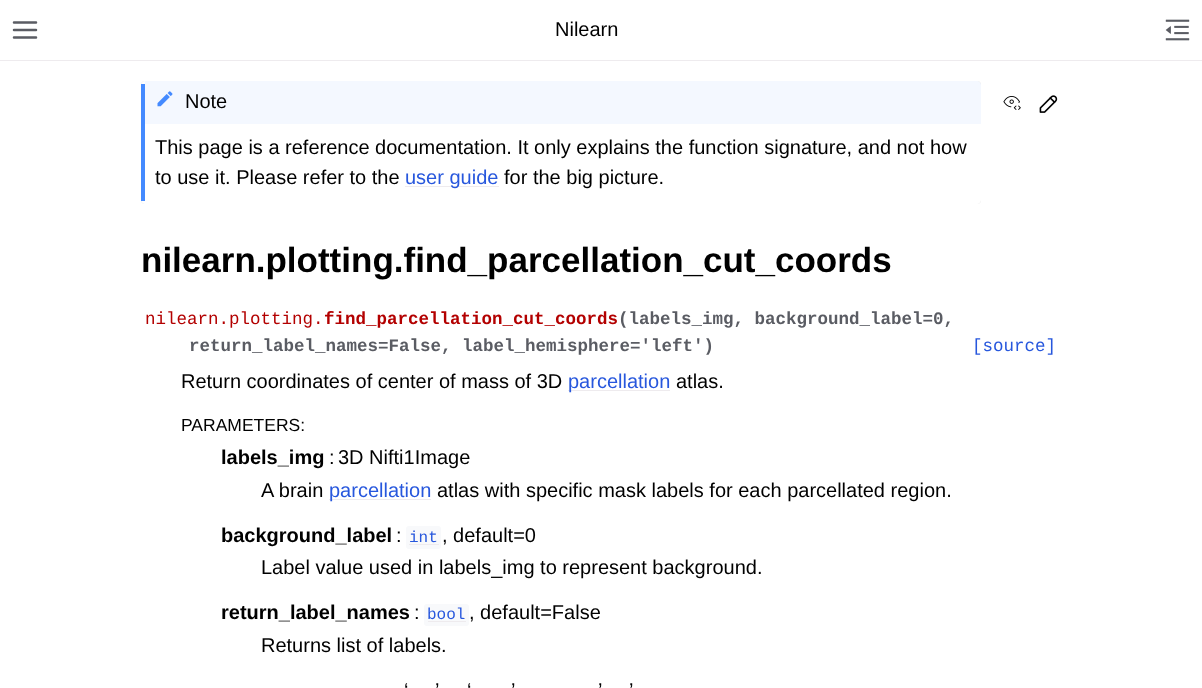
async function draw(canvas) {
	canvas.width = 1202;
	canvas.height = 688;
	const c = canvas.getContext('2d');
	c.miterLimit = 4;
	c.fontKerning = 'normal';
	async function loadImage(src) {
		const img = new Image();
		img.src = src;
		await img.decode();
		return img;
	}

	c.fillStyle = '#fff';
	c.fillRect(0, 0, 1202, 688);
	c.fillStyle = '#eeebee';
	c.fillRect(0, 60, 1202, 1);
	c.beginPath();
	c.moveTo(14, 30);
	c.lineTo(36, 30);
	c.moveTo(14, 22.5);
	c.lineTo(36, 22.5);
	c.moveTo(14, 37.5);
	c.lineTo(36, 37.5);
	c.strokeStyle = '#5a5c63';
	c.lineWidth = 2.5;
	c.lineCap = 'round';
	c.lineJoin = 'round';
	c.stroke();
	c.font = '20px Liberation Sans';
	c.fillStyle = '#000';
	c.fillText('Nilearn', 555, 36);
	c.drawImage(await loadImage('img1.png'), 1165, 19, 25, 22);
	c.save();
	c.beginPath();
	c.moveTo(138, 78);
	c.lineTo(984, 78);
	c.lineTo(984, 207);
	c.lineTo(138, 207);
	c.closePath();
	c.moveTo(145, 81);
	c.lineTo(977, 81);
	c.bezierCurveTo(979, 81, 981, 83, 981, 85);
	c.lineTo(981, 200);
	c.bezierCurveTo(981, 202, 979, 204, 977, 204);
	c.lineTo(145, 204);
	c.bezierCurveTo(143, 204, 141, 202, 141, 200);
	c.lineTo(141, 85);
	c.bezierCurveTo(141, 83, 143, 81, 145, 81);
	c.closePath();
	c.clip('evenodd');
	c.fillStyle = '#0000001a';
	c.filter = 'blur(0.5px)';
	c.beginPath();
	c.roundRect(141, 81, 840, 123, 4);
	c.fill();
	c.filter = 'none';
	c.restore();
	c.fillStyle = '#448aff';
	c.fillRect(141, 84, 4, 117);
	c.fillStyle = '#448aff0f';
	c.beginPath();
	c.moveTo(145, 81);
	c.lineTo(145, 124);
	c.lineTo(981, 124);
	c.lineTo(981, 84);
	c.bezierCurveTo(980, 82, 979, 81, 977, 81);
	c.closePath();
	c.fill();
	c.drawImage(await loadImage('img2.png'), 157, 91, 16, 16);
	c.fillStyle = '#000';
	for (const [text, x, y] of [
		['Note', 185, 108],
		['This page is a reference documentation. It only explains the function signature, and not how', 155, 154],
		['to use it. Please refer to the', 155, 184],
	]) {
		c.fillText(text, x, y);
	}
	c.fillStyle = '#eeebee';
	c.fillRect(405, 186, 94, 1);
	c.fillStyle = '#2757dd';
	c.fillText('user guide', 405, 184);
	c.fillStyle = '#000';
	c.fillText('for the big picture.', 504, 184);
	c.font = 'bold 35px Liberation Sans';
	c.fillText('nilearn.plotting.find_parcellation_cut_coords', 141, 272);
	c.font = '17.5px Liberation Mono';
	c.fillStyle = '#b30000';
	c.fillText('nilearn.plotting.', 145, 324);
	c.font = 'bold 17.5px Liberation Mono';
	c.fillText('find_parcellation_cut_coords', 324, 324);
	c.fillStyle = '#5a5c63';
	c.fillText('(labels_img, background_label=0,', 618, 324);
	c.fillText('return_label_names=False, label_hemisphere=\'left\')', 189, 351);
	c.font = '17.5px Liberation Mono';
	c.fillStyle = '#2757dd';
	c.fillText('[source]', 972, 351);
	c.font = '20px Liberation Sans';
	c.fillStyle = '#000';
	c.fillText('Return coordinates of center of mass of 3D', 181, 388);
	c.fillStyle = '#eeebee';
	c.fillRect(568, 390, 102, 1);
	c.fillStyle = '#2757dd';
	c.fillText('parcellation', 568, 388);
	c.fillStyle = '#000';
	c.fillText('atlas.', 676, 388);
	c.font = '17.5px Liberation Sans';
	c.fillText('PARAMETERS:', 181, 431);
	c.font = 'bold 20px Liberation Sans';
	c.fillText('labels_img', 221, 464);
	c.font = '20px Liberation Sans';
	for (const [text, x, y] of [
		[':', 329, 464],
		['3D Nifti1Image', 338, 464],
		['A brain', 261, 497],
	]) {
		c.fillText(text, x, y);
	}
	c.fillStyle = '#eeebee';
	c.fillRect(329, 499, 102, 1);
	c.fillStyle = '#2757dd';
	c.fillText('parcellation', 329, 497);
	c.fillStyle = '#000';
	c.fillText('atlas with specific mask labels for each parcellated region.', 437, 497);
	c.font = 'bold 20px Liberation Sans';
	c.fillText('background_label', 221, 542);
	c.font = '20px Liberation Sans';
	c.fillText(':', 396, 542);
	c.fillStyle = '#f8f9fb';
	c.beginPath();
	c.roundRect(406, 526, 35, 23, 3);
	c.fill();
	c.font = '16px Liberation Mono';
	c.fillStyle = '#2757dd';
	c.fillText('int', 409, 542);
	c.fillStyle = '#eeebee';
	c.fillRect(409, 544, 30, 1);
	c.font = '20px Liberation Sans';
	c.fillStyle = '#000';
	c.fillText(', default=0', 442, 542);
	c.fillText('Label value used in labels_img to represent background.', 261, 574);
	c.font = 'bold 20px Liberation Sans';
	c.fillText('return_label_names', 221, 619);
	c.font = '20px Liberation Sans';
	c.fillText(':', 414, 619);
	c.fillStyle = '#f8f9fb';
	c.beginPath();
	c.roundRect(424, 604, 45, 22, 3);
	c.fill();
	c.font = '16px Liberation Mono';
	c.fillStyle = '#2757dd';
	c.fillText('bool', 427, 619);
	c.fillStyle = '#eeebee';
	c.fillRect(428, 621, 38, 1);
	c.font = '20px Liberation Sans';
	c.fillStyle = '#000';
	for (const [text, x, y] of [
		[', default=False', 469, 619],
		['Returns list of labels.', 261, 652],
		['‘', 404, 697],
		['’', 435, 697],
		['‘', 467, 697],
		['’', 511, 697],
		['’', 598, 697],
		['’', 629, 697],
	]) {
		c.fillText(text, x, y);
	}
	c.drawImage(await loadImage('img3.png'), 1003, 96, 18, 14);
	c.drawImage(await loadImage('img4.png'), 1039, 95, 19, 18);
}

draw(document.querySelector('canvas'));
